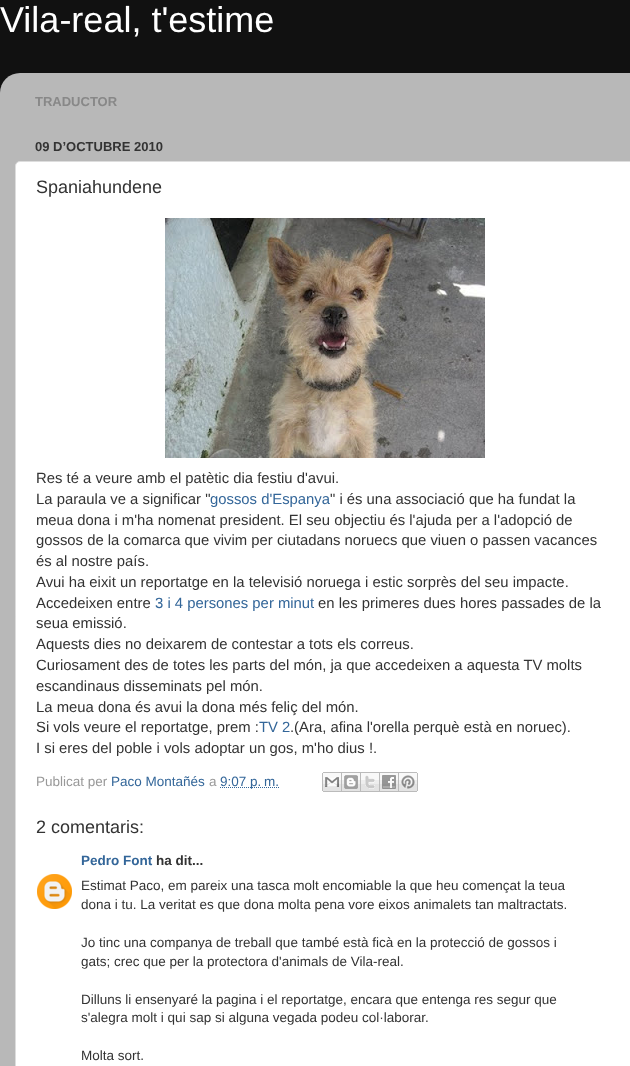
async function draw(canvas) {
	canvas.width = 630;
	canvas.height = 1066;
	const c = canvas.getContext('2d');
	c.miterLimit = 4;
	c.fontKerning = 'normal';
	async function loadImage(src) {
		const img = new Image();
		img.src = src;
		await img.decode();
		return img;
	}

	c.fillStyle = '#111';
	c.fillRect(0, 0, 630, 1066);
	c.font = '36px Liberation Sans';
	c.fillStyle = '#fff';
	c.fillText('Vila-real, t\'estime', 0, 32);
	c.drawImage(await loadImage('img1.png'), 0, 73, 630, 993);
	c.font = 'bold 13px Liberation Sans';
	c.fillStyle = '#888';
	c.fillText('TRADUCTOR', 35, 106);
	c.fillStyle = '#333';
	c.fillText('09 D’OCTUBRE 2010', 35, 151);
	c.fillStyle = '#fff';
	c.beginPath();
	c.roundRect(15.5, 161.5, 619, 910, 4.5);
	c.fill();
	c.strokeStyle = '#ddd';
	c.stroke();
	c.font = '18px Liberation Sans';
	c.fillStyle = '#333';
	c.fillText('Spaniahundene', 36, 193);
	c.drawImage(await loadImage('img2.png'), 165, 218, 320, 240);
	c.font = '14.85px Liberation Sans';
	c.fillText('Res té a veure amb el patètic dia festiu d\'avui.', 36, 483);
	c.fillText('La paraula ve a significar "', 36, 504);
	c.fillStyle = '#369';
	c.fillText('gossos d\'Espanya', 210, 504);
	c.fillStyle = '#333';
	for (const [text, x, y] of [
		['" i és una associació que ha fundat la', 330, 504],
		['meua dona i m\'ha nomenat president. El seu objectiu és l\'ajuda per a l\'adopció de', 36, 525],
		['gossos de la comarca que vivim per ciutadans noruecs que viuen o passen vacances', 36, 545],
		['és al nostre país.', 36, 566],
		['Avui ha eixit un reportatge en la televisió noruega i estic sorprès del seu impacte.', 36, 587],
		['Accedeixen entre', 36, 608],
	]) {
		c.fillText(text, x, y);
	}
	c.fillStyle = '#369';
	c.fillText('3 i 4 persones per minut', 155, 608);
	c.fillStyle = '#333';
	for (const [text, x, y] of [
		['en les primeres dues hores passades de la', 318, 608],
		['seua emissió.', 36, 628],
		['Aquests dies no deixarem de contestar a tots els correus.', 36, 649],
		['Curiosament des de totes les parts del món, ja que accedeixen a aquesta TV molts', 36, 670],
		['escandinaus disseminats pel món.', 36, 691],
		['La meua dona és avui la dona més feliç del món.', 36, 712],
		['Si vols veure el reportatge, prem :', 36, 732],
	]) {
		c.fillText(text, x, y);
	}
	c.fillStyle = '#369';
	c.fillText('TV 2', 259, 732);
	c.fillStyle = '#333';
	c.fillText('.(Ara, afina l\'orella perquè està en noruec).', 290, 732);
	c.fillText('I si eres del poble i vols adoptar un gos, m\'ho dius !.', 36, 753);
	c.font = '13.5px Liberation Sans';
	c.fillStyle = '#999';
	c.fillText('Publicat per', 36, 786);
	c.fillStyle = '#369';
	c.fillText('Paco Montañés', 111, 786);
	c.fillStyle = '#999';
	c.fillText('a', 209, 786);
	c.beginPath();
	c.moveTo(220, 787.5);
	c.lineTo(279, 787.5);
	c.strokeStyle = '#369';
	c.setLineDash([1, 1]);
	c.stroke();
	c.fillStyle = '#369';
	c.fillText('9:07 p. m.', 220, 786);
	c.drawImage(await loadImage('img3.png'), 322, 772, 20, 20);
	c.drawImage(await loadImage('img4.png'), 342, 772, 19, 20);
	c.drawImage(await loadImage('img5.png'), 361, 772, 19, 20);
	c.drawImage(await loadImage('img6.png'), 380, 772, 19, 20);
	c.drawImage(await loadImage('img7.png'), 399, 772, 19, 20);
	c.font = '18px Liberation Sans';
	c.fillStyle = '#333';
	c.fillText('2 comentaris:', 36, 833);
	c.font = 'bold 13.5px Liberation Sans';
	c.fillStyle = '#369';
	c.fillText('Pedro Font', 81, 865);
	c.fillStyle = '#333';
	c.fillText('ha dit...', 156, 865);
	c.drawImage(await loadImage('img8.png'), 37, 874, 35, 35);
	c.font = '13.5px Liberation Sans';
	for (const [text, x, y] of [
		['Estimat Paco, em pareix una tasca molt encomiable la que heu començat la teua', 81, 890],
		['dona i tu. La veritat es que dona molta pena vore eixos animalets tan maltractats.', 81, 909],
		['Jo tinc una companya de treball que també està ficà en la protecció de gossos i', 81, 947],
		['gats; crec que per la protectora d\'animals de Vila-real.', 81, 966],
		['Dilluns li ensenyaré la pagina i el reportatge, encara que entenga res segur que', 81, 1004],
		['s\'alegra molt i qui sap si alguna vegada podeu col·laborar.', 81, 1022],
		['Molta sort.', 81, 1060],
	]) {
		c.fillText(text, x, y);
	}
}

draw(document.querySelector('canvas'));
